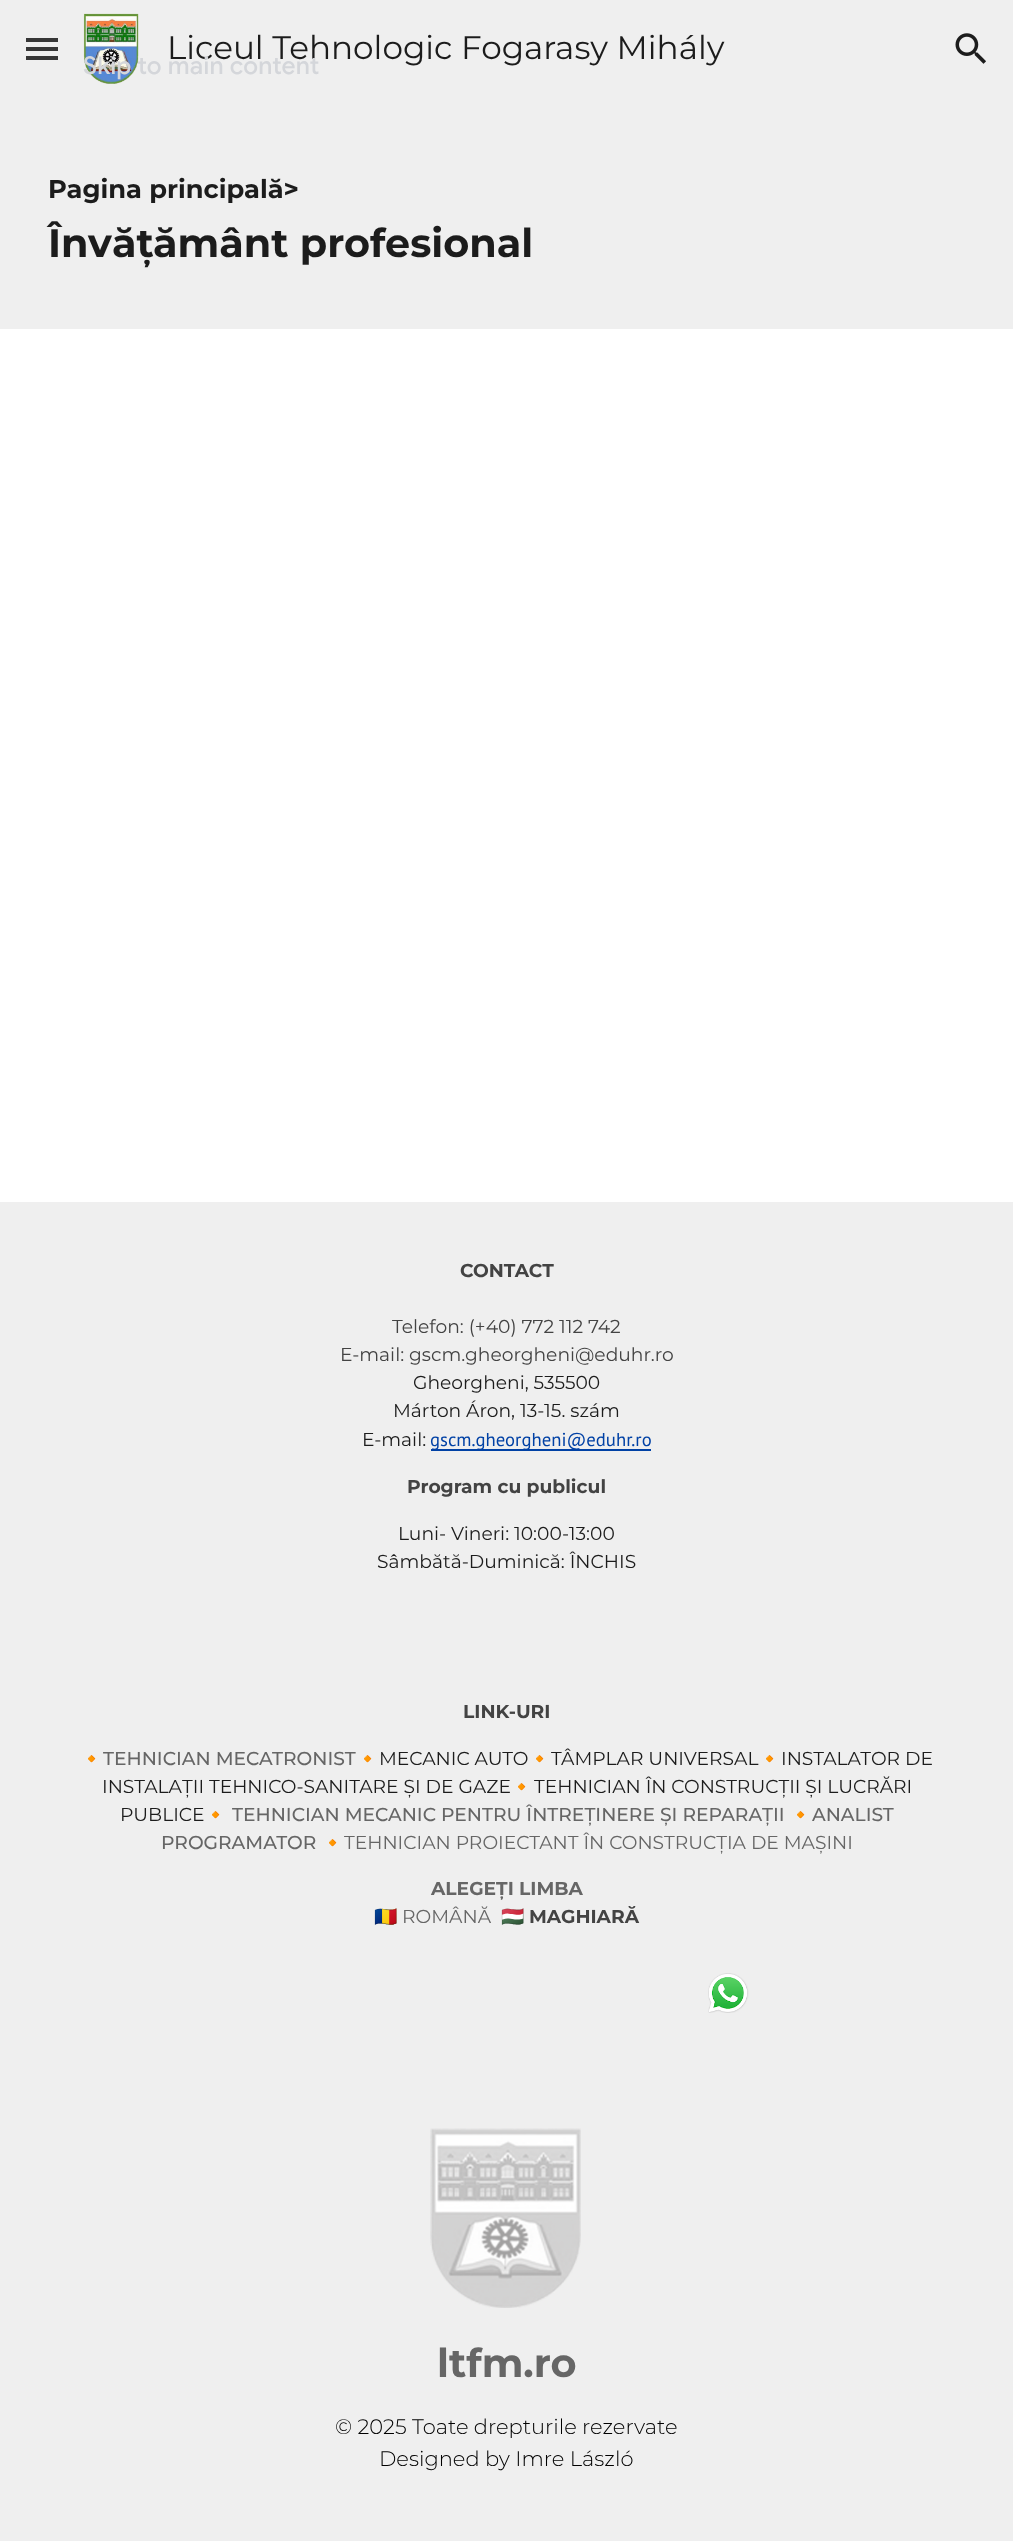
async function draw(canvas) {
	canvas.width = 1013;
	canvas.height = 2541;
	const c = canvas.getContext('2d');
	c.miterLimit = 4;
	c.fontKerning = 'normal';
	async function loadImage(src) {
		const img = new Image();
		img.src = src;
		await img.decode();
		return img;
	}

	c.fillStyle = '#fff';
	c.fillRect(0, 0, 1013, 2541);
	for (const [x, y, w, h, color] of [
		[0, 0, 1013, 329, '#efefef'],
		[26, 38, 32, 4, '#363636'],
		[26, 47, 32, 4, '#363636'],
		[26, 56, 32, 4, '#363636'],
	]) {
		c.fillStyle = color;
		c.fillRect(x, y, w, h);
	}
	c.drawImage(await loadImage('img1.png'), 83, 13, 56, 71);
	c.font = '32.7px Montserrat';
	c.fillStyle = '#1c1c1c';
	c.fillText('Liceul Tehnologic Fogarasy Mihály', 167, 59);
	c.drawImage(await loadImage('img2.png'), 955, 33, 31, 31);
	c.font = 'bold 25.75px Montserrat';
	c.fillText('Pagina principală>', 48, 198);
	c.font = 'bold 39.75px Montserrat';
	c.fillText('Învățământ profesional', 48, 257);
	c.fillStyle = '#efefef';
	c.fillRect(0, 1202, 1013, 1339);
	c.font = 'bold 18.7px Montserrat';
	c.fillStyle = '#434343';
	c.fillText('CONTACT', 460, 1277);
	c.font = '18.7px Montserrat';
	c.fillText('Telefon: (+40) 772 112 742', 392, 1333);
	c.fillText('E-mail: gscm.gheorgheni@eduhr.ro', 340, 1361);
	c.fillStyle = '#1c1c1c';
	for (const [text, x, y] of [
		['Gheorgheni, 535500', 413, 1389],
		['Márton Áron, 13-15. szám', 393, 1417],
		['E-mail:', 362, 1446],
	]) {
		c.fillText(text, x, y);
	}
	c.fillStyle = '#0041a5';
	c.fillRect(431, 1449, 220, 2);
	c.font = '18.7px PT Sans';
	c.fillText('gscm.gheorgheni@eduhr.ro', 430, 1446);
	c.font = 'bold 18.7px Montserrat';
	c.fillStyle = '#434343';
	c.fillText('Program cu publicul', 407, 1493);
	c.font = '18.7px Montserrat';
	c.fillStyle = '#1c1c1c';
	c.fillText('Luni- Vineri: 10:00-13:00', 398, 1540);
	c.fillText('Sâmbătă-Duminică: ÎNCHIS', 377, 1568);
	c.font = 'bold 18.7px Montserrat';
	c.fillStyle = '#434343';
	c.fillText('LINK-URI', 463, 1718);
	c.font = '18.7px Noto Color Emoji';
	c.fillStyle = '#666';
	c.fillText('🔸', 80, 1765);
	c.font = '500 18.7px Montserrat';
	c.fillText('TEHNICIAN MECATRONIST', 103, 1765);
	c.font = '18.7px Noto Color Emoji';
	c.fillText('🔸', 356, 1765);
	c.font = '18.7px Montserrat';
	c.fillStyle = '#1c1c1c';
	c.fillText('MECANIC AUTO', 379, 1765);
	c.font = '18.7px Noto Color Emoji';
	c.fillStyle = '#666';
	c.fillText('🔸', 528, 1765);
	c.font = '18.7px Montserrat';
	c.fillStyle = '#1c1c1c';
	c.fillText('TÂMPLAR UNIVERSAL', 551, 1765);
	c.font = '18.7px Noto Color Emoji';
	c.fillStyle = '#666';
	c.fillText('🔸', 758, 1765);
	c.font = '18.7px Montserrat';
	c.fillStyle = '#1c1c1c';
	c.fillText('INSTALATOR DE', 781, 1765);
	c.fillText('INSTALAȚII TEHNICO-SANITARE ȘI DE GAZE', 102, 1793);
	c.font = '18.7px Noto Color Emoji';
	c.fillStyle = '#666';
	c.fillText('🔸', 510, 1793);
	c.font = '18.7px Montserrat';
	c.fillStyle = '#1c1c1c';
	c.fillText('TEHNICIAN ÎN CONSTRUCȚII ȘI LUCRĂRI', 534, 1793);
	c.fillText('PUBLICE', 120, 1821);
	c.font = '18.7px Noto Color Emoji';
	c.fillStyle = '#666';
	c.fillText('🔸', 204, 1821);
	c.font = '500 18.7px Montserrat';
	c.fillText('TEHNICIAN MECANIC PENTRU ÎNTREȚINERE ȘI REPARAȚII', 232, 1821);
	c.font = '18.7px Noto Color Emoji';
	c.fillText('🔸', 789, 1821);
	c.font = '500 18.7px Montserrat';
	c.fillText('ANALIST', 812, 1821);
	c.fillText('PROGRAMATOR', 161, 1849);
	c.font = '18.7px Noto Color Emoji';
	c.fillText('🔸', 321, 1849);
	c.font = '18.7px Montserrat';
	c.fillText('TEHNICIAN PROIECTANT ÎN CONSTRUCȚIA DE MAȘINI', 344, 1849);
	c.font = 'bold 18.7px Montserrat';
	c.fillText('ALEGEȚI LIMBA', 431, 1895);
	c.font = '18.7px Noto Color Emoji';
	c.fillText('🇷🇴', 374, 1923);
	c.font = '18.7px Montserrat';
	c.fillText('ROMÂNĂ', 402, 1923);
	c.font = 'bold 18.7px Noto Color Emoji';
	c.fillStyle = '#434343';
	c.fillText('🇭🇺', 501, 1923);
	c.font = 'bold 18.7px Montserrat';
	c.fillText('MAGHIARĂ', 529, 1923);
	c.drawImage(await loadImage('img3.png'), 708, 1973, 41, 40);
	c.drawImage(await loadImage('img4.png'), 430, 2128, 151, 180);
	c.font = 'bold 39.75px Montserrat';
	c.fillStyle = '#666';
	c.fillText('ltfm.ro', 437, 2377);
	c.font = '300 21px Montserrat';
	c.fillStyle = '#000';
	c.fillText('© 2025 Toate drepturile rezervate', 335, 2434);
	c.fillText('Designed by Imre László', 379, 2466);
	c.letterSpacing = '0.25px';
	c.font = '500 24.5px Google Sans';
	c.fillStyle = '#d4d6da';
	c.fillText('Skip to main content', 83, 74);
}

draw(document.querySelector('canvas'));
